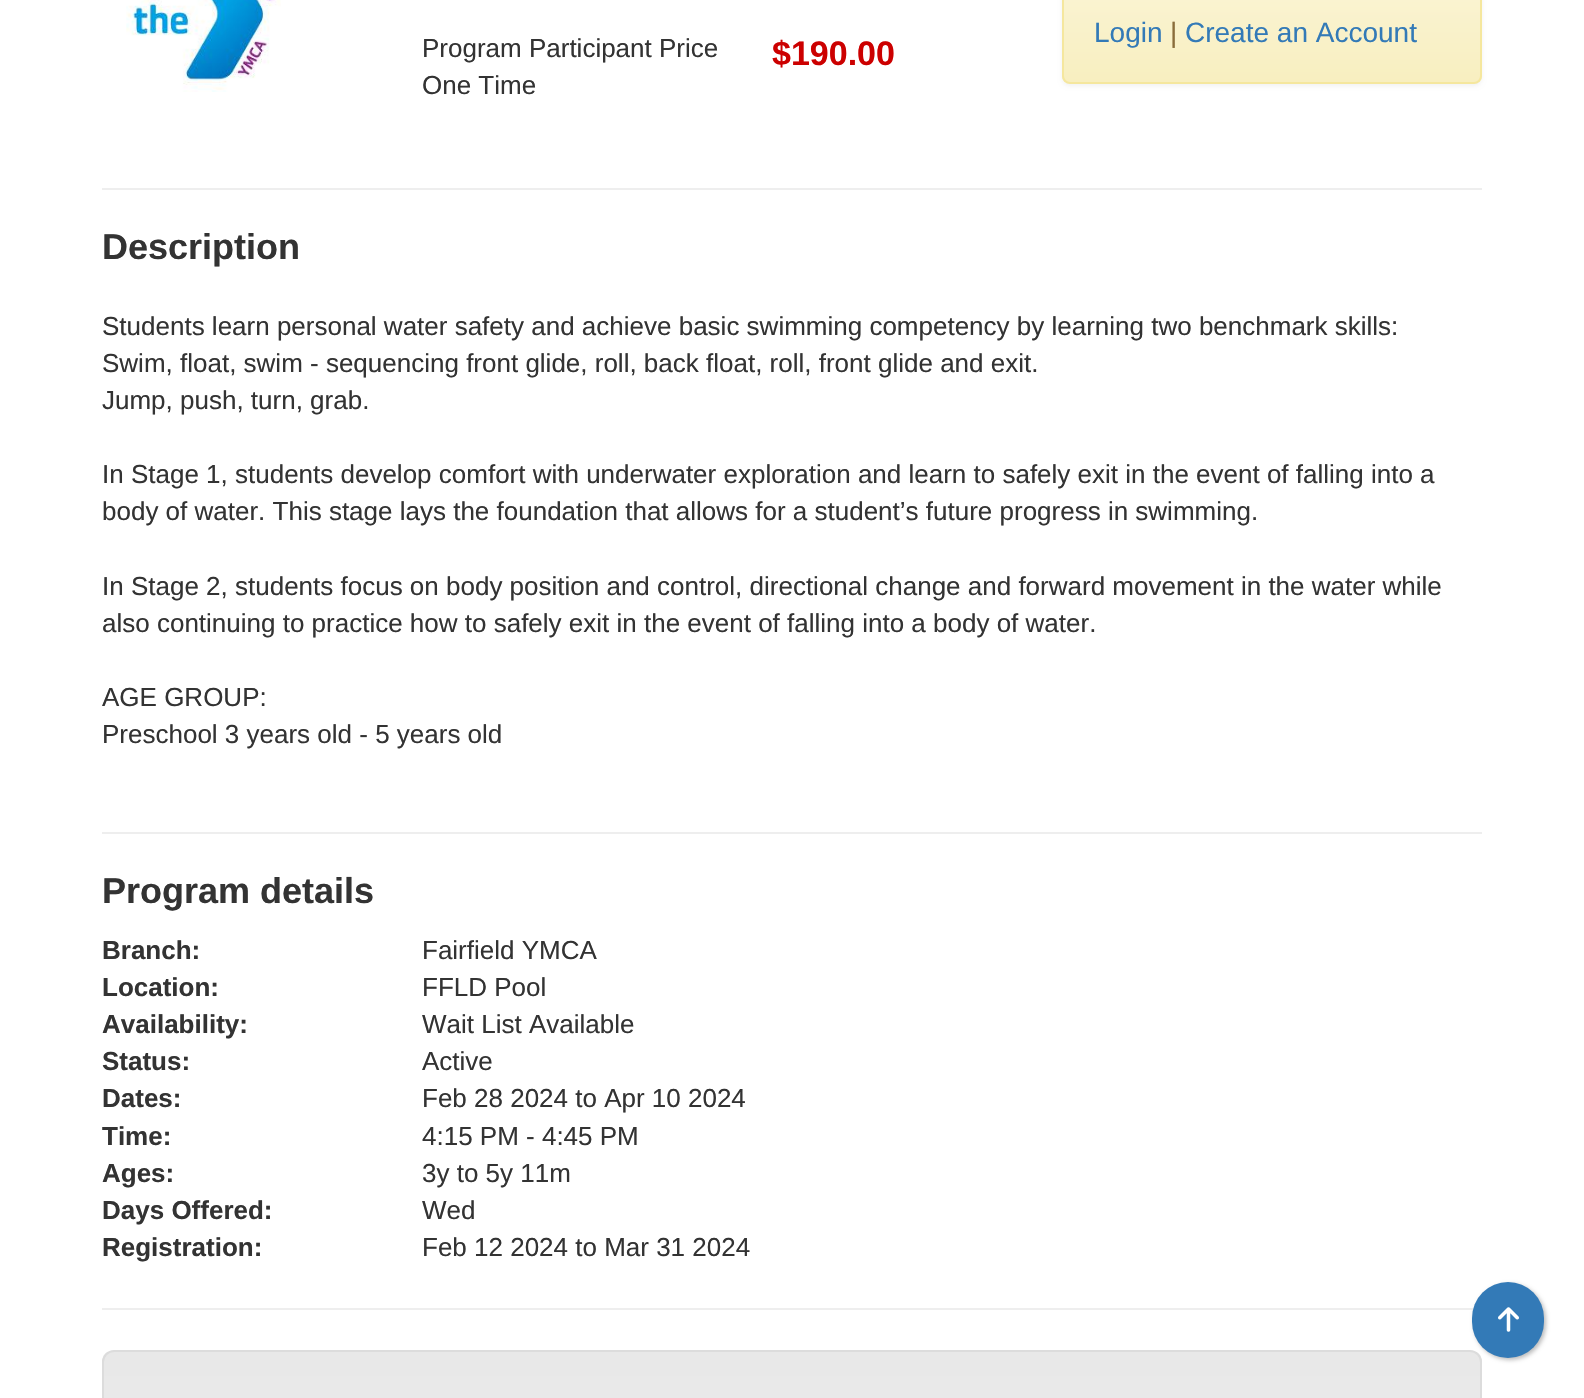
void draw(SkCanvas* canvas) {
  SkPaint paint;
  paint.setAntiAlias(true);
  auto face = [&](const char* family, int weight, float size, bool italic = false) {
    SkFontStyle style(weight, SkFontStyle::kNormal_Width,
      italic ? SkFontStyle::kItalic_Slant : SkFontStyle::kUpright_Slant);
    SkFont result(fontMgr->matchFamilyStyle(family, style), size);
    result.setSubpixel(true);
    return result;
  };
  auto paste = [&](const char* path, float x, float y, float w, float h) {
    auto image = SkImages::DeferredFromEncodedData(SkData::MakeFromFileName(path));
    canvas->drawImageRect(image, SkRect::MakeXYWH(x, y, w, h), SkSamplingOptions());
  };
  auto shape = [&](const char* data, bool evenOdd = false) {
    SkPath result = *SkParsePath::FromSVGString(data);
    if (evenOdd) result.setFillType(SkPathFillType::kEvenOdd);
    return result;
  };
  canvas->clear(0xffffffff);
  paint.setColor(0x0d000000);
  paint.setMaskFilter(SkMaskFilter::MakeBlur(kNormal_SkBlurStyle, 2));
  canvas->drawRoundRect(SkRect::MakeXYWH(1062, -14, 420, 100), 8, 8, paint);
  paint.setMaskFilter(nullptr);
  canvas->save();
  canvas->clipPath(shape("M1070-100H1474C1478.5-100 1482-96.5 1482-92V76C1482 80.5 1478.5 84 1474 84H1070C1065.5 84 1062 80.5 1062 76V-92C1062-96.5 1065.5-100 1070-100Z"), true);
  {
    const SkColor colors[] = {0xfffcf8e3, 0xfff8efc0};
    const float stops[] = {0, 1};
    const SkPoint ends[] = {{1272, -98}, {1272, 82}};
    paint.setShader(SkGradientShader::MakeLinear(ends, colors, stops, 2, SkTileMode::kClamp));
    paint.setAlpha(255);
  }
  canvas->drawRect(SkRect::MakeXYWH(1062, 0, 420, 82), paint);
  canvas->restore();
  paint.setStroke(true);
  paint.setStrokeWidth(2);
  paint.setShader(nullptr);
  paint.setColor(0xfff5e79e);
  canvas->drawRoundRect(SkRect::MakeXYWH(1063, -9, 418, 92), 7, 7, paint);
  paste("img/1.png", 126, 0, 155, 92);
  paint.setStroke(false);
  {
    const struct { float x, y, w, h; SkColor color; } items[] = {
      {102, 188, 1380, 2, 0xffeeeeee},
      {102, 832, 1380, 2, 0xffeeeeee},
      {102, 1308, 1380, 2, 0xffeeeeee},
    };
    for (auto [x, y, w, h, color] : items) {
      paint.setColor(color);
      canvas->drawRect(SkRect::MakeXYWH(x, y, w, h), paint);
    }
  }
  canvas->save();
  canvas->clipPath(shape("M114 1350H1470C1476.5 1350 1482 1355.5 1482 1362V1964C1482 1970.5 1476.5 1976 1470 1976H114C107.5 1976 102 1970.5 102 1964V1362C102 1355.5 107.5 1350 114 1350Z"), true);
  {
    const SkColor colors[] = {0xffe8e8e8, 0xfff5f5f5};
    const float stops[] = {0, 1};
    const SkPoint ends[] = {{792, 1352}, {792, 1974}};
    paint.setShader(SkGradientShader::MakeLinear(ends, colors, stops, 2, SkTileMode::kClamp));
    paint.setAlpha(255);
  }
  canvas->drawRect(SkRect::MakeXYWH(102, 1352, 1380, 46), paint);
  canvas->restore();
  paint.setStroke(true);
  paint.setShader(nullptr);
  paint.setColor(0xffdcdcdc);
  canvas->drawRoundRect(SkRect::MakeXYWH(103, 1351, 1378, 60), 11, 11, paint);
  paint.setStroke(false);
  paint.setColor(0xffbbbbbb);
  paint.setMaskFilter(SkMaskFilter::MakeBlur(kNormal_SkBlurStyle, 2));
  canvas->drawRoundRect(SkRect::MakeXYWH(1474, 1284, 72, 76), 36, 36, paint);
  paint.setMaskFilter(nullptr);
  paint.setColor(0xff337ab7);
  canvas->drawRoundRect(SkRect::MakeXYWH(1472, 1282, 72, 76), 36, 36, paint);
  paste("img/2.png", 1498, 1307, 21, 25);
  auto f0 = face("Liberation Sans", 400, 28);
  canvas->drawString("Login", 1094, 42, f0, paint);
  paint.setColor(0xff8a6d3b);
  canvas->drawString("|", 1170, 42, f0, paint);
  paint.setColor(0xff337ab7);
  canvas->drawString("Create an Account", 1185, 42, f0, paint);
  auto f1 = face("Liberation Sans", 400, 26);
  paint.setColor(0xff333333);
  canvas->drawString("Program Participant Price", 422, 57, f1, paint);
  canvas->drawString("One Time", 422, 94, f1, paint);
  auto f2 = face("Liberation Sans", 700, 34);
  paint.setColor(0xffcc0000);
  canvas->drawString("$190.00", 772, 65, f2, paint);
  auto f3 = face("Liberation Sans", 700, 36);
  paint.setColor(0xff333333);
  canvas->drawString("Description", 102, 259, f3, paint);
  {
    const struct { const char* s; float x, y; } items[] = {
      {"Students learn personal water safety and achieve basic swimming competency by learning two benchmark skills:", 102, 335},
      {"Swim, float, swim - sequencing front glide, roll, back float, roll, front glide and exit.", 102, 372},
      {"Jump, push, turn, grab.", 102, 409},
      {"In Stage 1, students develop comfort with underwater exploration and learn to safely exit in the event of falling into a", 102, 483},
      {"body of water. This stage lays the foundation that allows for a student’s future progress in swimming.", 102, 520},
      {"In Stage 2, students focus on body position and control, directional change and forward movement in the water while", 102, 595},
      {"also continuing to practice how to safely exit in the event of falling into a body of water.", 102, 632},
      {"AGE GROUP:", 102, 706},
      {"Preschool 3 years old - 5 years old", 102, 743},
    };
    for (auto [s, x, y] : items) {
      canvas->drawString(s, x, y, f1, paint);
    }
  }
  canvas->drawString("Program details", 102, 903, f3, paint);
  auto f4 = face("Liberation Sans", 700, 26);
  canvas->drawString("Branch:", 102, 959, f4, paint);
  canvas->drawString("Fairfield YMCA", 422, 959, f1, paint);
  canvas->drawString("Location:", 102, 996, f4, paint);
  canvas->drawString("FFLD Pool", 422, 996, f1, paint);
  canvas->drawString("Availability:", 102, 1033, f4, paint);
  canvas->drawString("Wait List Available", 422, 1033, f1, paint);
  canvas->drawString("Status:", 102, 1070, f4, paint);
  canvas->drawString("Active", 422, 1070, f1, paint);
  canvas->drawString("Dates:", 102, 1107, f4, paint);
  canvas->drawString("Feb 28 2024 to Apr 10 2024", 422, 1107, f1, paint);
  canvas->drawString("Time:", 102, 1145, f4, paint);
  canvas->drawString("4:15 PM - 4:45 PM", 422, 1145, f1, paint);
  canvas->drawString("Ages:", 102, 1182, f4, paint);
  canvas->drawString("3y to 5y 11m", 422, 1182, f1, paint);
  canvas->drawString("Days Offered:", 102, 1219, f4, paint);
  canvas->drawString("Wed", 422, 1219, f1, paint);
  canvas->drawString("Registration:", 102, 1256, f4, paint);
  canvas->drawString("Feb 12 2024 to Mar 31 2024", 422, 1256, f1, paint);
}
